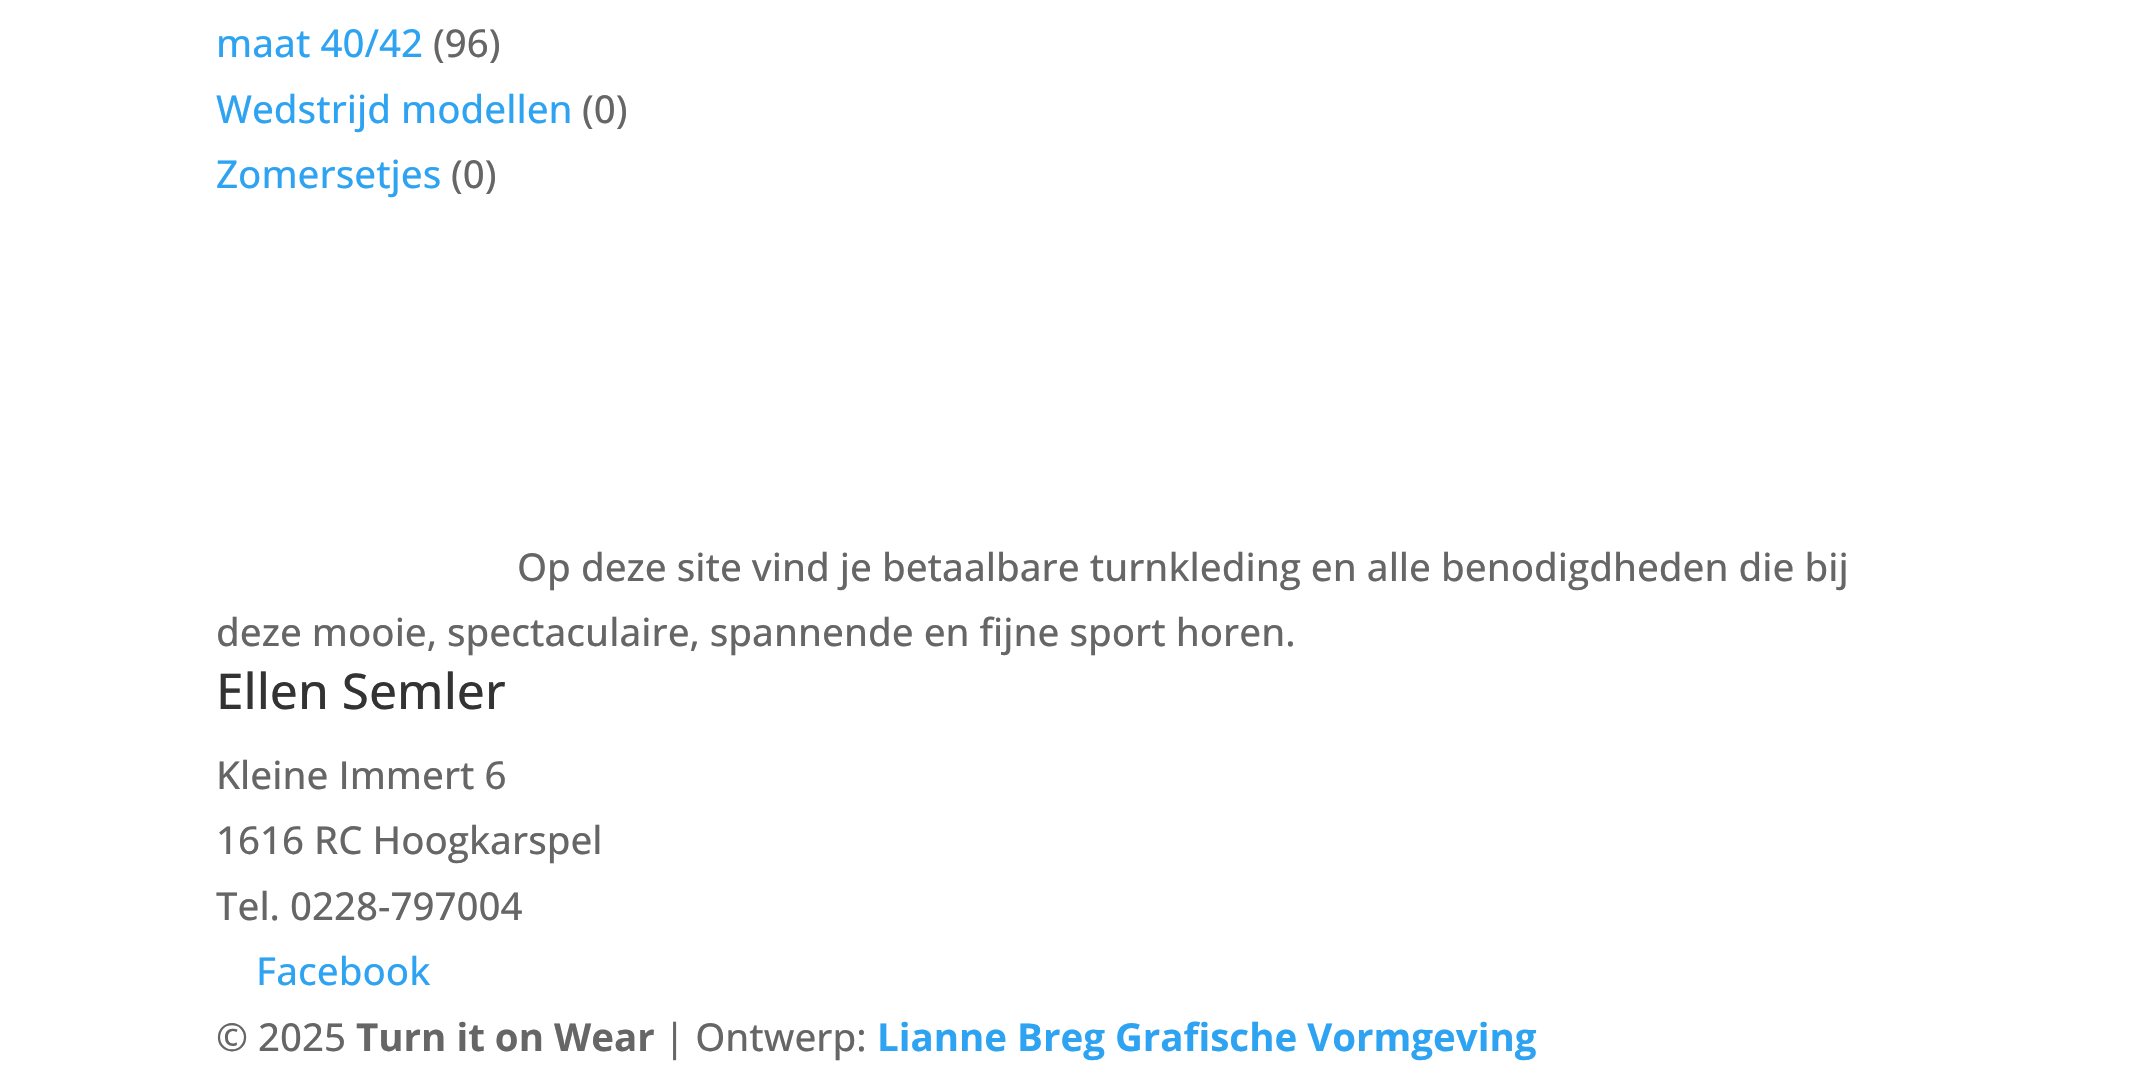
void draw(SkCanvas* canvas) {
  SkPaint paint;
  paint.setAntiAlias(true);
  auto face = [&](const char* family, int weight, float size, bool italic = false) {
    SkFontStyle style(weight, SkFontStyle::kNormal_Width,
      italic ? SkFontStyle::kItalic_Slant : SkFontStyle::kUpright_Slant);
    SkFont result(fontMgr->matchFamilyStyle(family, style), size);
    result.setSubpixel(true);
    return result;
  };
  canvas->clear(0xffffffff);
  auto f0 = face("Open Sans", 500, 38.5f);
  paint.setColor(0xff2ea3f2);
  canvas->drawString("maat 40/42", 216, 57, f0, paint);
  paint.setColor(0xff666666);
  canvas->drawString("(96)", 433, 57, f0, paint);
  paint.setColor(0xff2ea3f2);
  canvas->drawString("Wedstrijd modellen", 216, 123, f0, paint);
  paint.setColor(0xff666666);
  canvas->drawString("(0)", 582, 123, f0, paint);
  paint.setColor(0xff2ea3f2);
  canvas->drawString("Zomersetjes", 216, 188, f0, paint);
  paint.setColor(0xff666666);
  {
    const struct { const char* s; float x, y; } items[] = {
      {"(0)", 451, 188},
      {"Op deze site vind je betaalbare turnkleding en alle benodigdheden die bij", 517, 581},
      {"deze mooie, spectaculaire, spannende en fijne sport horen.", 216, 646},
    };
    for (auto [s, x, y] : items) {
      canvas->drawString(s, x, y, f0, paint);
    }
  }
  auto f1 = face("Open Sans", 500, 49.5f);
  paint.setColor(0xff333333);
  canvas->drawString("Ellen Semler", 216, 709, f1, paint);
  paint.setColor(0xff666666);
  {
    const struct { const char* s; float x, y; } items[] = {
      {"Kleine Immert 6", 216, 789},
      {"1616 RC Hoogkarspel", 216, 854},
      {"Tel. 0228-797004", 216, 920},
    };
    for (auto [s, x, y] : items) {
      canvas->drawString(s, x, y, f0, paint);
    }
  }
  paint.setColor(0xff2ea3f2);
  canvas->drawString("Facebook", 256, 985, f0, paint);
  paint.setColor(0xff666666);
  canvas->drawString("© 2025", 216, 1051, f0, paint);
  auto f2 = face("Open Sans", 700, 38.5f);
  canvas->drawString("Turn it on Wear", 356, 1051, f2, paint);
  canvas->drawString("| Ontwerp:", 664, 1051, f0, paint);
  paint.setColor(0xff2ea3f2);
  canvas->drawString("Lianne Breg Grafische Vormgeving", 877, 1051, f2, paint);
}
